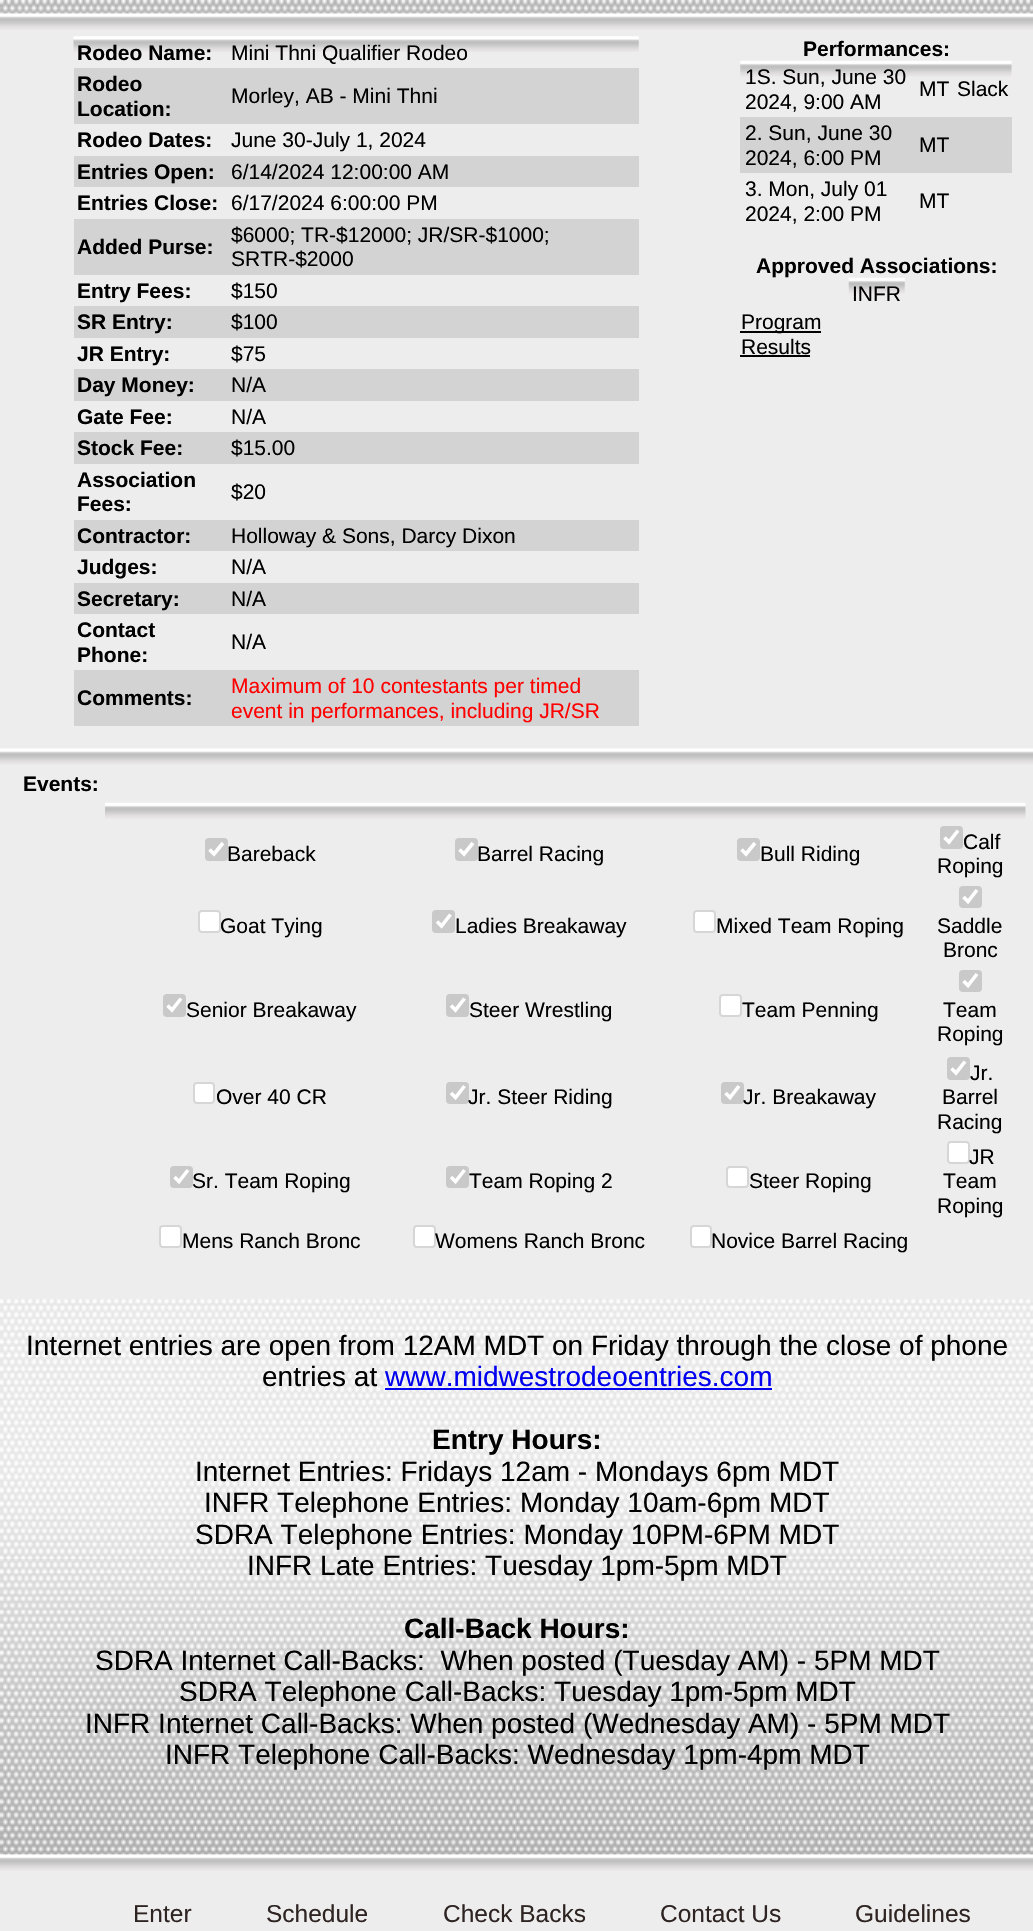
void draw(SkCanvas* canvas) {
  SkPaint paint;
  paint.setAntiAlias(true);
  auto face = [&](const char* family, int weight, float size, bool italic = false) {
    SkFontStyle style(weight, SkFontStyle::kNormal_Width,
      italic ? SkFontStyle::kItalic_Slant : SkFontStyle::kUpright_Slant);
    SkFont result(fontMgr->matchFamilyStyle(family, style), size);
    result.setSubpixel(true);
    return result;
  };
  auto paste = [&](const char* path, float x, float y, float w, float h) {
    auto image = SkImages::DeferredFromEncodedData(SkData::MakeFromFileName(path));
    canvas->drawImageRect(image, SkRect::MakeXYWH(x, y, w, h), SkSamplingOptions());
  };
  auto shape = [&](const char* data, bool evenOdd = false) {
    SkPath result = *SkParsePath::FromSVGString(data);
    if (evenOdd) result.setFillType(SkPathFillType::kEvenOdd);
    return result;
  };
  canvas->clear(0xffffffff);
  paste("img/1.png", 0, 0, 1033, 1855);
  paint.setColor(0xffeeeded);
  canvas->drawRect(SkRect::MakeXYWH(0, 30, 1033, 719), paint);
  paste("img/2.png", 0, 13, 1033, 17);
  paste("img/3.png", 73, 36, 566, 16);
  {
    const struct { float x, y, w, h; SkColor color; } items[] = {
      {74, 68, 565, 56, 0xffd3d3d3},
      {74, 156, 565, 31, 0xffd3d3d3},
      {74, 219, 565, 56, 0xffd3d3d3},
      {74, 306, 565, 32, 0xffd3d3d3},
      {74, 369, 565, 32, 0xffd3d3d3},
      {74, 432, 565, 32, 0xffd3d3d3},
      {74, 520, 565, 31, 0xffd3d3d3},
      {74, 583, 565, 31, 0xffd3d3d3},
      {74, 670, 565, 56, 0xffd3d3d3},
    };
    for (auto [x, y, w, h, color] : items) {
      paint.setColor(color);
      canvas->drawRect(SkRect::MakeXYWH(x, y, w, h), paint);
    }
  }
  paste("img/4.png", 740, 60, 272, 17);
  canvas->drawRect(SkRect::MakeXYWH(740, 117, 272, 56), paint);
  paste("img/5.png", 848, 277, 57, 17);
  {
    const struct { float x, y, w, h; SkColor color; } items[] = {
      {740, 331, 81, 2, 0xff000000},
      {740, 355, 70, 2, 0xff000000},
      {0, 765, 1033, 534, 0xffeeeded},
    };
    for (auto [x, y, w, h, color] : items) {
      paint.setColor(color);
      canvas->drawRect(SkRect::MakeXYWH(x, y, w, h), paint);
    }
  }
  paste("img/6.png", 0, 748, 1033, 17);
  paste("img/7.png", 105, 802, 921, 17);
  paint.setColor(0xffcac9c9);
  canvas->drawRoundRect(SkRect::MakeXYWH(205, 838, 23, 23), 4, 4, paint);
  paint.setStroke(true);
  paint.setStrokeWidth(3.6f);
  paint.setColor(0xffffffff);
  canvas->drawPath(shape("M209.5 849.5L214 854L223 843"), paint);
  paint.setStroke(false);
  paint.setColor(0xffcac9c9);
  canvas->drawRoundRect(SkRect::MakeXYWH(455, 838, 23, 23), 4, 4, paint);
  paint.setStroke(true);
  paint.setColor(0xffffffff);
  canvas->drawPath(shape("M459.5 849.5L464 854L473 843"), paint);
  paint.setStroke(false);
  paint.setColor(0xffcac9c9);
  canvas->drawRoundRect(SkRect::MakeXYWH(737, 838, 23, 23), 4, 4, paint);
  paint.setStroke(true);
  paint.setColor(0xffffffff);
  canvas->drawPath(shape("M741.5 849.5L746 854L755 843"), paint);
  paint.setStroke(false);
  paint.setColor(0xffcac9c9);
  canvas->drawRoundRect(SkRect::MakeXYWH(940, 826, 23, 23), 4, 4, paint);
  paint.setStroke(true);
  paint.setColor(0xffffffff);
  canvas->drawPath(shape("M944.5 837.5L949 842L958 830.5"), paint);
  paint.setStroke(false);
  canvas->drawRoundRect(SkRect::MakeXYWH(198, 910, 23, 23), 4, 4, paint);
  paint.setStroke(true);
  paint.setStrokeWidth(2);
  paint.setColor(0x4d767676);
  canvas->drawRoundRect(SkRect::MakeXYWH(199, 911, 21, 21), 3, 3, paint);
  paint.setStroke(false);
  paint.setColor(0xffcac9c9);
  canvas->drawRoundRect(SkRect::MakeXYWH(432, 910, 23, 23), 4, 4, paint);
  paint.setStroke(true);
  paint.setStrokeWidth(3.6f);
  paint.setColor(0xffffffff);
  canvas->drawPath(shape("M437 921.5L441.5 926L450.5 914.5"), paint);
  paint.setStroke(false);
  canvas->drawRoundRect(SkRect::MakeXYWH(693, 910, 23, 23), 4, 4, paint);
  paint.setStroke(true);
  paint.setStrokeWidth(2);
  paint.setColor(0x4d767676);
  canvas->drawRoundRect(SkRect::MakeXYWH(694, 911, 21, 21), 3, 3, paint);
  paint.setStroke(false);
  paint.setColor(0xffcac9c9);
  canvas->drawRoundRect(SkRect::MakeXYWH(959, 886, 23, 22), 4, 4, paint);
  paint.setStroke(true);
  paint.setStrokeWidth(3.6f);
  paint.setColor(0xffffffff);
  canvas->drawPath(shape("M963.5 897L968 901.5L977 890"), paint);
  paint.setStroke(false);
  paint.setColor(0xffcac9c9);
  canvas->drawRoundRect(SkRect::MakeXYWH(163, 994, 23, 23), 4, 4, paint);
  paint.setStroke(true);
  paint.setColor(0xffffffff);
  canvas->drawPath(shape("M167.5 1005.5L172 1010L181 998.5"), paint);
  paint.setStroke(false);
  paint.setColor(0xffcac9c9);
  canvas->drawRoundRect(SkRect::MakeXYWH(446, 994, 23, 23), 4, 4, paint);
  paint.setStroke(true);
  paint.setColor(0xffffffff);
  canvas->drawPath(shape("M451 1005.5L455.5 1010L464.5 998.5"), paint);
  paint.setStroke(false);
  canvas->drawRoundRect(SkRect::MakeXYWH(719, 994, 23, 23), 4, 4, paint);
  paint.setStroke(true);
  paint.setStrokeWidth(2);
  paint.setColor(0x4d767676);
  canvas->drawRoundRect(SkRect::MakeXYWH(720, 995, 21, 21), 3, 3, paint);
  paint.setStroke(false);
  paint.setColor(0xffcac9c9);
  canvas->drawRoundRect(SkRect::MakeXYWH(959, 970, 23, 22), 4, 4, paint);
  paint.setStroke(true);
  paint.setStrokeWidth(3.6f);
  paint.setColor(0xffffffff);
  canvas->drawPath(shape("M963.5 981L968 985.5L977 974"), paint);
  paint.setStroke(false);
  canvas->drawRoundRect(SkRect::MakeXYWH(193, 1082, 22, 22), 4, 4, paint);
  paint.setStroke(true);
  paint.setStrokeWidth(2);
  paint.setColor(0x4d767676);
  canvas->drawRoundRect(SkRect::MakeXYWH(194, 1083, 20, 20), 3, 3, paint);
  paint.setStroke(false);
  paint.setColor(0xffcac9c9);
  canvas->drawRoundRect(SkRect::MakeXYWH(446, 1082, 23, 22), 4, 4, paint);
  paint.setStroke(true);
  paint.setStrokeWidth(3.6f);
  paint.setColor(0xffffffff);
  canvas->drawPath(shape("M451 1093L455.5 1097.5L464.5 1086"), paint);
  paint.setStroke(false);
  paint.setColor(0xffcac9c9);
  canvas->drawRoundRect(SkRect::MakeXYWH(721, 1082, 23, 22), 4, 4, paint);
  paint.setStroke(true);
  paint.setColor(0xffffffff);
  canvas->drawPath(shape("M725.5 1093L730 1097.5L739 1086"), paint);
  paint.setStroke(false);
  paint.setColor(0xffcac9c9);
  canvas->drawRoundRect(SkRect::MakeXYWH(947, 1057, 23, 23), 4, 4, paint);
  paint.setStroke(true);
  paint.setColor(0xffffffff);
  canvas->drawPath(shape("M951.5 1068.5L956 1073L965 1061.5"), paint);
  paint.setStroke(false);
  paint.setColor(0xffcac9c9);
  canvas->drawRoundRect(SkRect::MakeXYWH(170, 1166, 23, 22), 4, 4, paint);
  paint.setStroke(true);
  paint.setColor(0xffffffff);
  canvas->drawPath(shape("M174.5 1177L179 1181.5L188 1170"), paint);
  paint.setStroke(false);
  paint.setColor(0xffcac9c9);
  canvas->drawRoundRect(SkRect::MakeXYWH(446, 1166, 23, 22), 4, 4, paint);
  paint.setStroke(true);
  paint.setColor(0xffffffff);
  canvas->drawPath(shape("M451 1177L455.5 1181.5L464.5 1170"), paint);
  paint.setStroke(false);
  canvas->drawRoundRect(SkRect::MakeXYWH(726, 1166, 23, 22), 4, 4, paint);
  paint.setStroke(true);
  paint.setStrokeWidth(2);
  paint.setColor(0x4d767676);
  canvas->drawRoundRect(SkRect::MakeXYWH(727, 1167, 21, 20), 3, 3, paint);
  paint.setStroke(false);
  paint.setColor(0xffffffff);
  canvas->drawRoundRect(SkRect::MakeXYWH(947, 1141, 23, 23), 4, 4, paint);
  paint.setStroke(true);
  paint.setColor(0x4d767676);
  canvas->drawRoundRect(SkRect::MakeXYWH(948, 1142, 21, 21), 3, 3, paint);
  paint.setStroke(false);
  paint.setColor(0xffffffff);
  canvas->drawRoundRect(SkRect::MakeXYWH(159, 1225, 23, 23), 4, 4, paint);
  paint.setStroke(true);
  paint.setColor(0x4d767676);
  canvas->drawRoundRect(SkRect::MakeXYWH(160, 1226, 21, 21), 3, 3, paint);
  paint.setStroke(false);
  paint.setColor(0xffffffff);
  canvas->drawRoundRect(SkRect::MakeXYWH(413, 1225, 23, 23), 4, 4, paint);
  paint.setStroke(true);
  paint.setColor(0x4d767676);
  canvas->drawRoundRect(SkRect::MakeXYWH(414, 1226, 21, 21), 3, 3, paint);
  paint.setStroke(false);
  paint.setColor(0xffffffff);
  canvas->drawRoundRect(SkRect::MakeXYWH(690, 1225, 22, 23), 4, 4, paint);
  paint.setStroke(true);
  paint.setColor(0x4d767676);
  canvas->drawRoundRect(SkRect::MakeXYWH(691, 1226, 20, 21), 3, 3, paint);
  paint.setStroke(false);
  paint.setColor(0xff0000ee);
  canvas->drawRect(SkRect::MakeXYWH(385, 1388, 387, 2), paint);
  paint.setColor(0xffeeeded);
  canvas->drawRect(SkRect::MakeXYWH(0, 1871, 1033, 60), paint);
  paste("img/8.png", 0, 1854, 1033, 17);
  auto f0 = face("Liberation Sans", 700, 21);
  paint.setColor(0xff000000);
  canvas->drawString("Rodeo Name:", 77, 60, f0, paint);
  auto f1 = face("Liberation Sans", 400, 21);
  canvas->drawString("Mini Thni Qualifier Rodeo", 231, 60, f1, paint);
  canvas->drawString("Rodeo", 77, 91, f0, paint);
  canvas->drawString("Location:", 77, 116, f0, paint);
  canvas->drawString("Morley, AB - Mini Thni", 231, 103, f1, paint);
  canvas->drawString("Rodeo Dates:", 77, 147, f0, paint);
  canvas->drawString("June 30-July 1, 2024", 231, 147, f1, paint);
  canvas->drawString("Entries Open:", 77, 179, f0, paint);
  canvas->drawString("6/14/2024 12:00:00 AM", 231, 179, f1, paint);
  canvas->drawString("Entries Close:", 77, 210, f0, paint);
  canvas->drawString("6/17/2024 6:00:00 PM", 231, 210, f1, paint);
  canvas->drawString("Added Purse:", 77, 254, f0, paint);
  canvas->drawString("$6000; TR-$12000; JR/SR-$1000;", 231, 242, f1, paint);
  canvas->drawString("SRTR-$2000", 231, 266, f1, paint);
  canvas->drawString("Entry Fees:", 77, 298, f0, paint);
  canvas->drawString("$150", 231, 298, f1, paint);
  canvas->drawString("SR Entry:", 77, 329, f0, paint);
  canvas->drawString("$100", 231, 329, f1, paint);
  canvas->drawString("JR Entry:", 77, 361, f0, paint);
  canvas->drawString("$75", 231, 361, f1, paint);
  canvas->drawString("Day Money:", 77, 392, f0, paint);
  canvas->drawString("N/A", 231, 392, f1, paint);
  canvas->drawString("Gate Fee:", 77, 424, f0, paint);
  canvas->drawString("N/A", 231, 424, f1, paint);
  canvas->drawString("Stock Fee:", 77, 455, f0, paint);
  canvas->drawString("$15.00", 231, 455, f1, paint);
  canvas->drawString("Association", 77, 487, f0, paint);
  canvas->drawString("Fees:", 77, 511, f0, paint);
  canvas->drawString("$20", 231, 499, f1, paint);
  canvas->drawString("Contractor:", 77, 543, f0, paint);
  canvas->drawString("Holloway & Sons, Darcy Dixon", 231, 543, f1, paint);
  canvas->drawString("Judges:", 77, 574, f0, paint);
  canvas->drawString("N/A", 231, 574, f1, paint);
  canvas->drawString("Secretary:", 77, 606, f0, paint);
  canvas->drawString("N/A", 231, 606, f1, paint);
  canvas->drawString("Contact", 77, 637, f0, paint);
  canvas->drawString("Phone:", 77, 662, f0, paint);
  canvas->drawString("N/A", 231, 649, f1, paint);
  canvas->drawString("Comments:", 77, 705, f0, paint);
  paint.setColor(0xffff0000);
  canvas->drawString("Maximum of 10 contestants per timed", 231, 693, f1, paint);
  canvas->drawString("event in performances, including JR/SR", 231, 718, f1, paint);
  paint.setColor(0xff000000);
  canvas->drawString("Performances:", 803, 56, f0, paint);
  {
    const struct { const char* s; float x, y; } items[] = {
      {"1S. Sun, June 30", 745, 84},
      {"2024, 9:00 AM", 745, 109},
      {"MT", 919, 96},
      {"Slack", 957, 96},
      {"2. Sun, June 30", 745, 140},
      {"2024, 6:00 PM", 745, 165},
      {"MT", 919, 152},
      {"3. Mon, July 01", 745, 196},
      {"2024, 2:00 PM", 745, 221},
      {"MT", 919, 208},
    };
    for (auto [s, x, y] : items) {
      canvas->drawString(s, x, y, f1, paint);
    }
  }
  canvas->drawString("Approved Associations:", 756, 273, f0, paint);
  {
    const struct { const char* s; float x, y; } items[] = {
      {"INFR", 852, 301},
      {"Program", 741, 329},
      {"Results", 741, 354},
    };
    for (auto [s, x, y] : items) {
      canvas->drawString(s, x, y, f1, paint);
    }
  }
  canvas->drawString("Events:", 23, 791, f0, paint);
  {
    const struct { const char* s; float x, y; } items[] = {
      {"Bareback", 227, 861},
      {"Barrel Racing", 477, 861},
      {"Bull Riding", 760, 861},
      {"Calf", 963, 849},
      {"Roping", 937, 873},
      {"Goat Tying", 220, 933},
      {"Ladies Breakaway", 455, 933},
      {"Mixed Team Roping", 716, 933},
      {"Saddle", 937, 933},
      {"Bronc", 943, 957},
      {"Senior Breakaway", 186, 1017},
      {"Steer Wrestling", 469, 1017},
      {"Team Penning", 742, 1017},
      {"Team", 943, 1017},
      {"Roping", 937, 1041},
      {"Over 40 CR", 216, 1104},
      {"Jr. Steer Riding", 468, 1104},
      {"Jr. Breakaway", 743, 1104},
      {"Jr.", 970, 1080},
      {"Barrel", 942, 1104},
      {"Racing", 937, 1129},
      {"Sr. Team Roping", 192, 1188},
      {"Team Roping 2", 469, 1188},
      {"Steer Roping", 749, 1188},
      {"JR", 969, 1164},
      {"Team", 943, 1188},
      {"Roping", 937, 1213},
      {"Mens Ranch Bronc", 182, 1248},
      {"Womens Ranch Bronc", 435, 1248},
      {"Novice Barrel Racing", 711, 1248},
    };
    for (auto [s, x, y] : items) {
      canvas->drawString(s, x, y, f1, paint);
    }
  }
  auto f2 = face("Liberation Sans", 400, 28);
  canvas->drawString("Internet entries are open from 12AM MDT on Friday through the close of phone", 26, 1355, f2, paint);
  canvas->drawString("entries at", 262, 1386, f2, paint);
  paint.setColor(0xff0000ee);
  canvas->drawString("www.midwestrodeoentries.com", 385, 1386, f2, paint);
  auto f3 = face("Liberation Sans", 700, 28);
  paint.setColor(0xff000000);
  canvas->drawString("Entry Hours:", 432, 1449, f3, paint);
  {
    const struct { const char* s; float x, y; } items[] = {
      {"Internet Entries: Fridays 12am - Mondays 6pm MDT", 195, 1481},
      {"INFR Telephone Entries: Monday 10am-6pm MDT", 204, 1512},
      {"SDRA Telephone Entries: Monday 10PM-6PM MDT", 195, 1544},
      {"INFR Late Entries: Tuesday 1pm-5pm MDT", 247, 1575},
    };
    for (auto [s, x, y] : items) {
      canvas->drawString(s, x, y, f2, paint);
    }
  }
  canvas->drawString("Call-Back Hours:", 404, 1638, f3, paint);
  {
    const struct { const char* s; float x, y; } items[] = {
      {"SDRA Internet Call-Backs:  When posted (Tuesday AM) - 5PM MDT", 95, 1670},
      {"SDRA Telephone Call-Backs: Tuesday 1pm-5pm MDT", 179, 1701},
      {"INFR Internet Call-Backs: When posted (Wednesday AM) - 5PM MDT", 85, 1733},
      {"INFR Telephone Call-Backs: Wednesday 1pm-4pm MDT", 165, 1764},
    };
    for (auto [s, x, y] : items) {
      canvas->drawString(s, x, y, f2, paint);
    }
  }
  auto f4 = face("Liberation Sans", 400, 24.5f);
  paint.setColor(0xff2e2523);
  {
    const struct { const char* s; float x, y; } items[] = {
      {"Enter", 133, 1922},
      {"Schedule", 266, 1922},
      {"Check Backs", 443, 1922},
      {"Contact Us", 660, 1922},
      {"Guidelines", 855, 1922},
    };
    for (auto [s, x, y] : items) {
      canvas->drawString(s, x, y, f4, paint);
    }
  }
}
